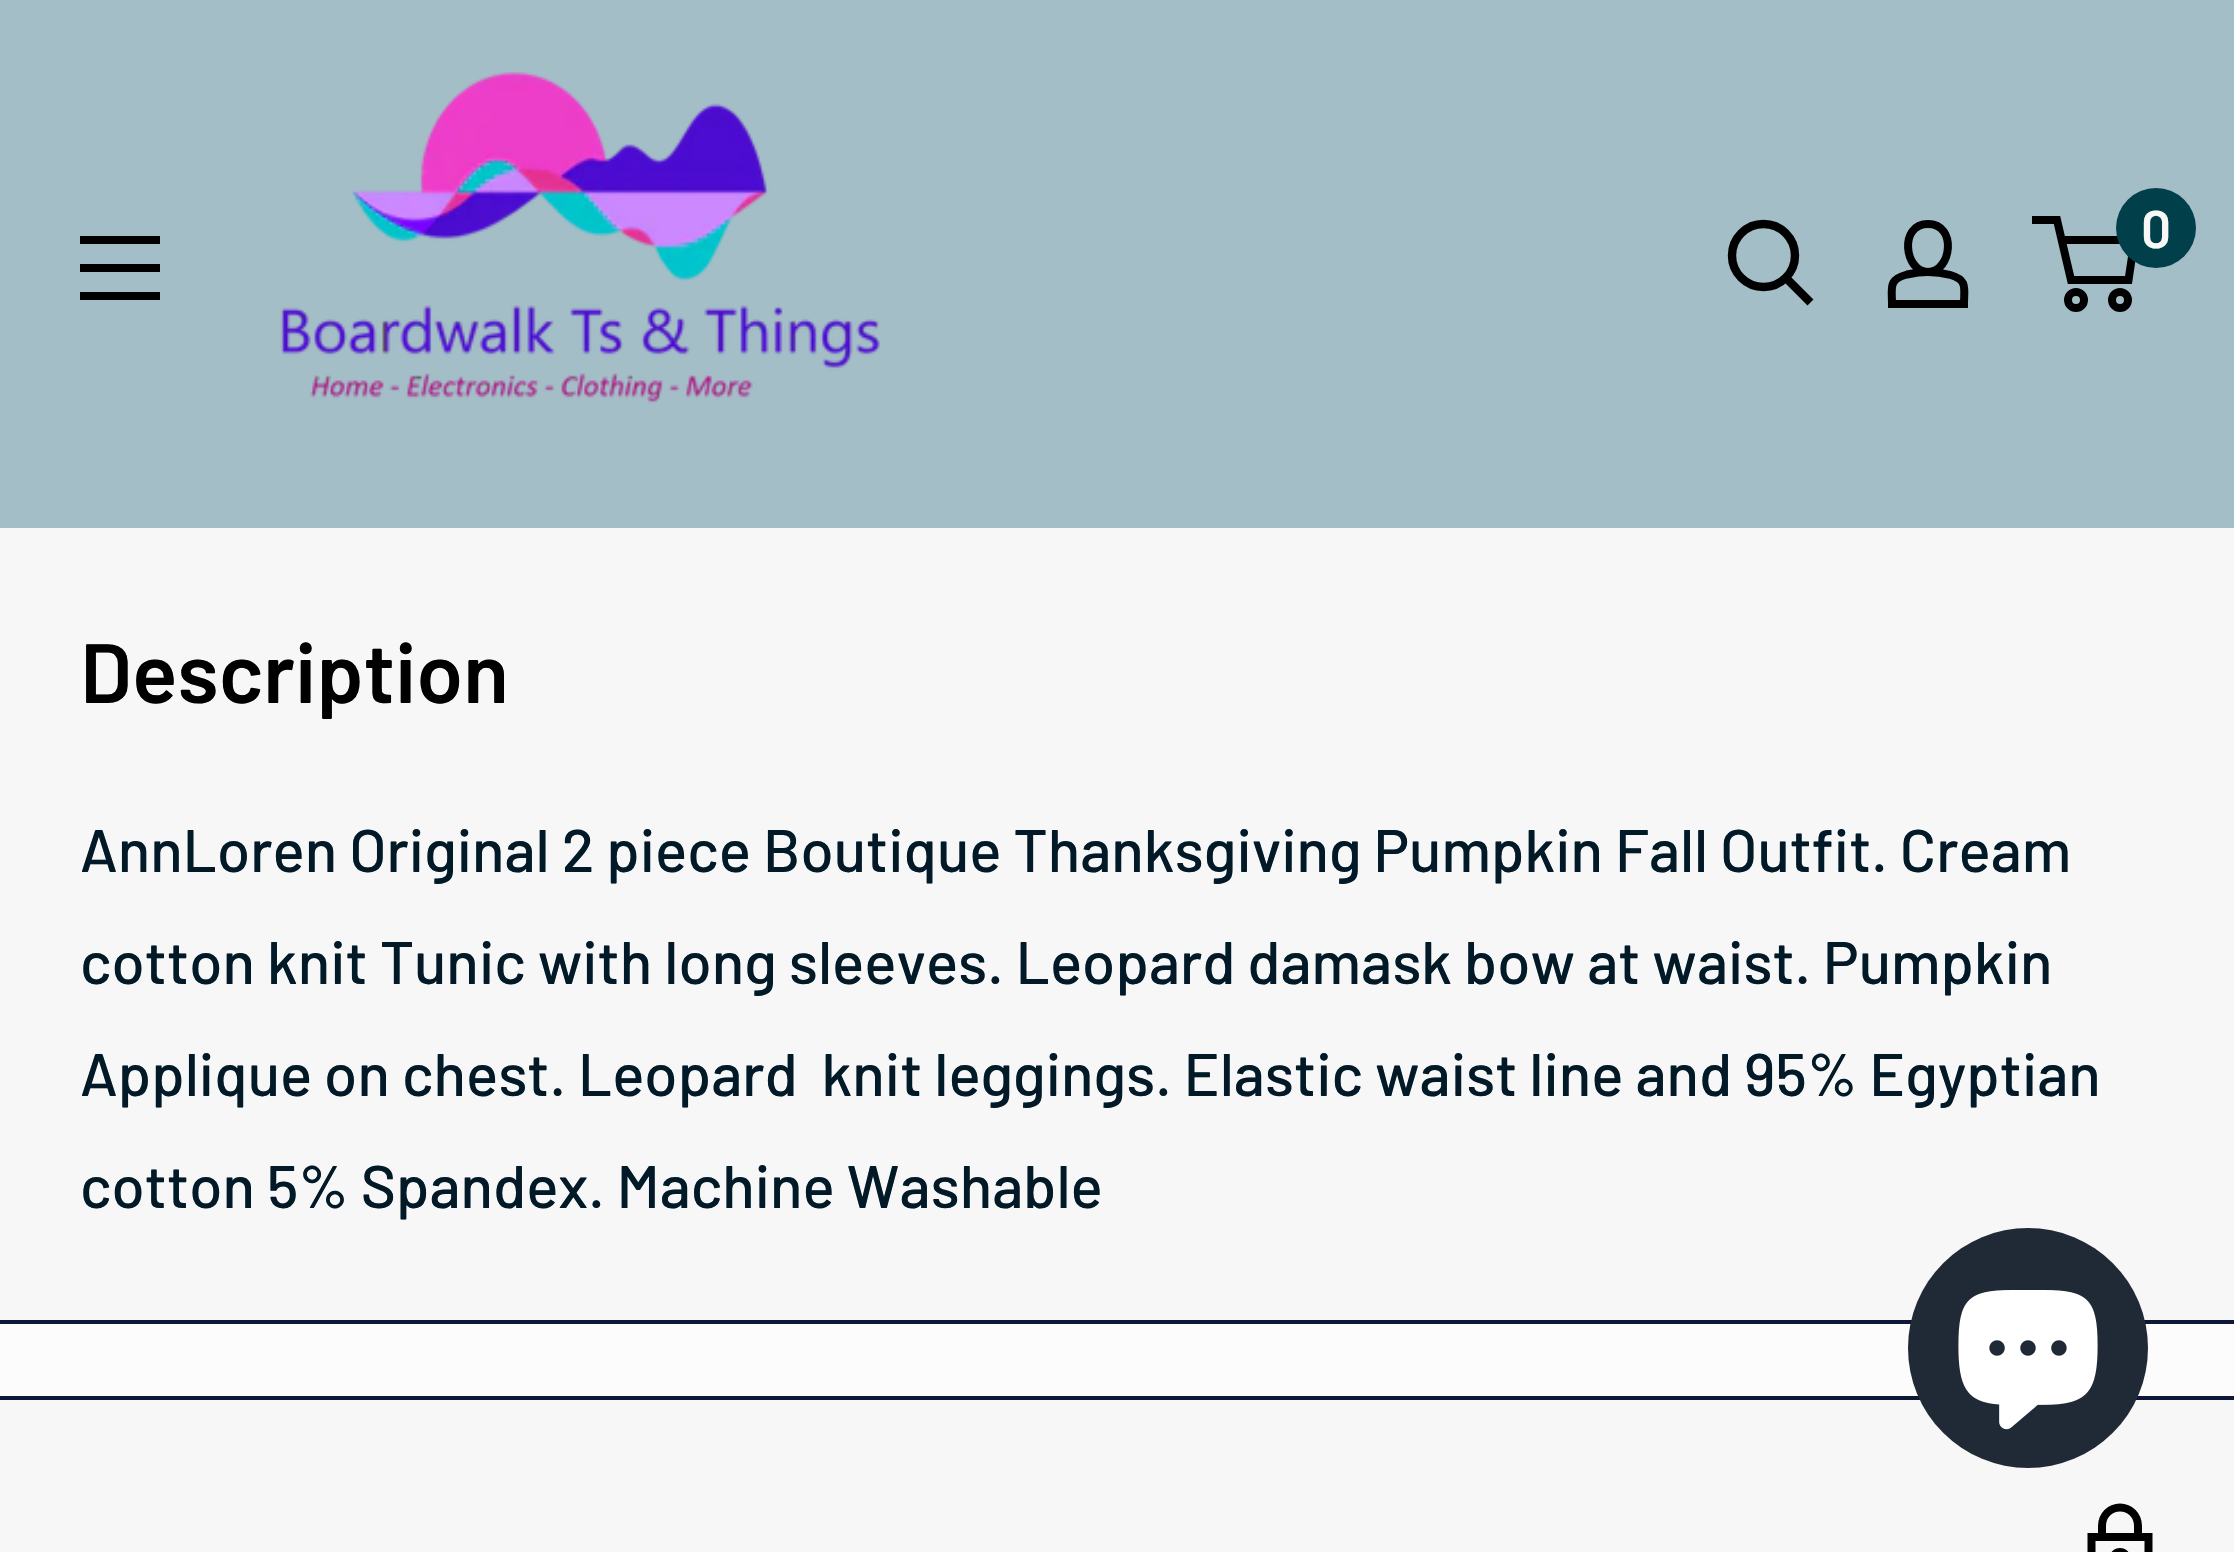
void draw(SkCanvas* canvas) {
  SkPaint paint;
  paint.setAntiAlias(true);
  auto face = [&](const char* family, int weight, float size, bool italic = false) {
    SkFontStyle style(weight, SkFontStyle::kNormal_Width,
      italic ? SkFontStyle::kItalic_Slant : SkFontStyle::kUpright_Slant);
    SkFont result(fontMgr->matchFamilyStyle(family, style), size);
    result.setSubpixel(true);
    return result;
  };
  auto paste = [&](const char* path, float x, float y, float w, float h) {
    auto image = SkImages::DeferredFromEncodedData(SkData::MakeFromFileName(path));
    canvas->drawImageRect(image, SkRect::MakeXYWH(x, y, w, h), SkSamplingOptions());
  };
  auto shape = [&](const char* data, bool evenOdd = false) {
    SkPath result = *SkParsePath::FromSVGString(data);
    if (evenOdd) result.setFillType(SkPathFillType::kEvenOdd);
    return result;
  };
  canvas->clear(0xfffcfcfc);
  paint.setColor(0xffa4bec7);
  canvas->drawRect(SkRect::MakeXYWH(0, 0, 2234, 528), paint);
  paste("img/1.png", 280, 71, 600, 333);
  paint.setStroke(true);
  paint.setStrokeWidth(8.4f);
  paint.setStrokeCap(SkPaint::kSquare_Cap);
  paint.setColor(0xff000000);
  canvas->drawPath(shape("M1807.5 299.5L1786.5 278.5"), paint);
  paint.setStrokeCap(SkPaint::kButt_Cap);
  canvas->drawCircle(1763.5f, 255.5f, 31.5f, paint);
  paint.setStrokeWidth(8);
  canvas->drawPath(shape("M1928 272C1935.5 272 1943 273 1950.5 275C1968 280 1964 288.5 1964 304H1892C1892 287.5 1888 279.5 1907 274.5C1914 273 1921 272 1928 272ZM1928 272C1904.5 272 1898.5 224 1928 224C1957.5 224 1951.5 272 1928 272Z"), paint);
  canvas->drawCircle(2076, 300, 8, paint);
  canvas->drawCircle(2120, 300, 8, paint);
  canvas->drawPath(shape("M2061 240H2134.5L2128.5 280H2071L2057 220H2032"), paint);
  paint.setStroke(false);
  paint.setColor(0xff01404b);
  canvas->drawCircle(2156, 228, 40, paint);
  paint.setColor(0xff000000);
  canvas->drawPath(shape("M80 292H160V300H80ZM80 236H160V244H80ZM80 264H160V272H80Z", true), paint);
  {
    const struct { float x, y, w, h; SkColor color; } items[] = {
      {0, 528, 2234, 792, 0xfff7f7f7},
      {0, 1320, 2234, 4, 0xff101635},
      {0, 1400, 2234, 152, 0xfff7f7f7},
      {0, 1396, 2234, 4, 0xff101635},
    };
    for (auto [x, y, w, h, color] : items) {
      paint.setColor(color);
      canvas->drawRect(SkRect::MakeXYWH(x, y, w, h), paint);
    }
  }
  paint.setStroke(true);
  paint.setStrokeCap(SkPaint::kSquare_Cap);
  paint.setColor(0xff000000);
  canvas->drawPath(shape("M2120 1507.5C2110 1507.5 2102 1515.5 2102 1526V1537H2138V1526C2138 1515.5 2130 1507.5 2120 1507.5Z"), paint);
  canvas->drawPath(shape("M2091.5 1537H2148.5V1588.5H2091.5Z"), paint);
  paint.setStrokeCap(SkPaint::kButt_Cap);
  canvas->drawCircle(2120, 1559, 7, paint);
  paint.setStroke(false);
  paint.setColor(0xff202a36);
  canvas->drawCircle(2028, 1348, 120, paint);
  paste("img/2.png", 1958, 1290, 140, 140);
  auto f0 = face("Barlow", 600, 53);
  paint.setColor(0xfff7f7f7);
  canvas->drawString("0", 2141, 248, f0, paint);
  auto f1 = face("Barlow", 600, 84);
  paint.setColor(0xff000000);
  canvas->drawString("Description", 80, 703, f1, paint);
  auto f2 = face("Barlow", 500, 60);
  paint.setColor(0xff021928);
  {
    const struct { const char* s; float x, y; } items[] = {
      {"AnnLoren Original 2 piece Boutique Thanksgiving Pumpkin Fall Outfit. Cream", 80, 872},
      {"cotton knit Tunic with long sleeves. Leopard damask bow at waist. Pumpkin", 80, 984},
      {"Applique on chest. Leopard  knit leggings. Elastic waist line and 95% Egyptian", 80, 1096},
      {"cotton 5% Spandex. Machine Washable", 80, 1208},
    };
    for (auto [s, x, y] : items) {
      canvas->drawString(s, x, y, f2, paint);
    }
  }
}
